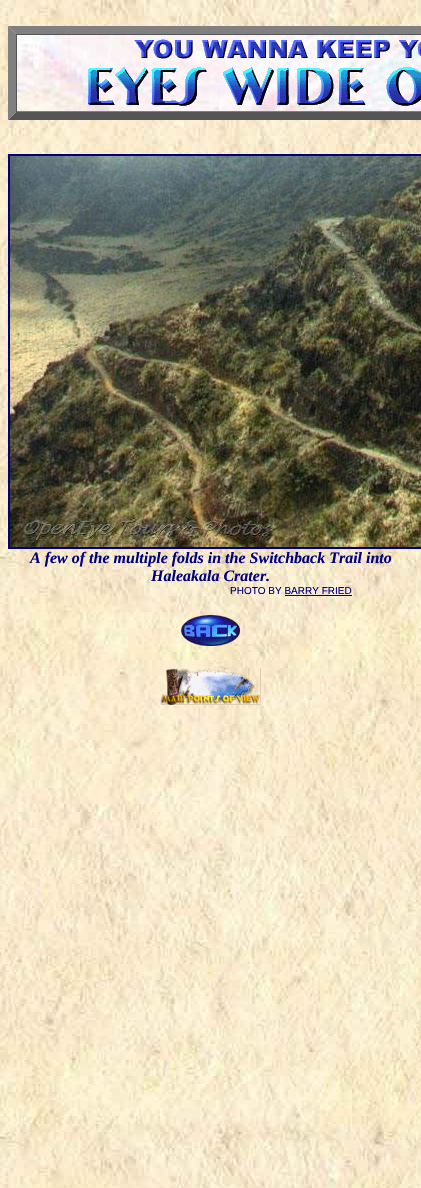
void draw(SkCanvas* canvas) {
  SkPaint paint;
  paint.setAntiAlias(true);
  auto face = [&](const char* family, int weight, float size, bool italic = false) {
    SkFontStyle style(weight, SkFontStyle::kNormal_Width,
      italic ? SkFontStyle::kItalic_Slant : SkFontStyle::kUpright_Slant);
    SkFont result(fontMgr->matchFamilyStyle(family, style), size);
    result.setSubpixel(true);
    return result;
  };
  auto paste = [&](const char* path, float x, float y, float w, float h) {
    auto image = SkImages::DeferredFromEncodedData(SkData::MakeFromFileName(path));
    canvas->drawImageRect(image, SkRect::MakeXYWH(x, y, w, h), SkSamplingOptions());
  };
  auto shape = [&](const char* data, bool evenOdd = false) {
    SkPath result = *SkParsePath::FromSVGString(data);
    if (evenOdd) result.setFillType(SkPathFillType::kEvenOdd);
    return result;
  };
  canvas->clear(0xffffffff);
  paste("img/1.png", 0, 0, 421, 1188);
  paint.setColor(0xff808080);
  canvas->drawPath(shape("M8 26H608L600 34H16Z"), paint);
  paint.setColor(0xff555555);
  canvas->drawPath(shape("M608 120H8L16 112H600Z"), paint);
  paint.setColor(0xff808080);
  canvas->drawPath(shape("M8 120V26L16 34V112Z"), paint);
  paste("img/2.png", 17, 35, 404, 76);
  {
    const struct { float x, y, w, h; SkColor color; } items[] = {
      {16, 34, 405, 1, 0xff555555},
      {16, 111, 405, 1, 0xff808080},
      {16, 34, 1, 78, 0xff555555},
    };
    for (auto [x, y, w, h, color] : items) {
      paint.setColor(color);
      canvas->drawRect(SkRect::MakeXYWH(x, y, w, h), paint);
    }
  }
  paste("img/3.png", 88, 39, 333, 67);
  paint.setStroke(true);
  paint.setStrokeWidth(2);
  paint.setColor(0xff000080);
  canvas->drawRect(SkRect::MakeXYWH(9, 155, 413, 393), paint);
  paste("img/4.png", 10, 156, 411, 391);
  paint.setStroke(false);
  canvas->drawRect(SkRect::MakeXYWH(285, 595, 67, 1), paint);
  paste("img/5.png", 181, 615, 59, 31);
  paste("img/6.png", 161, 668, 100, 37);
  auto f0 = face("Liberation Serif", 700, 16, true);
  canvas->drawString("A few of the multiple folds in the Switchback Trail into", 30, 563, f0, paint);
  canvas->drawString("Haleakala Crater.", 151, 581, f0, paint);
  auto f1 = face("Liberation Sans", 400, 10);
  canvas->drawString("PHOTO BY BARRY FRIED", 230, 594, f1, paint);
}
